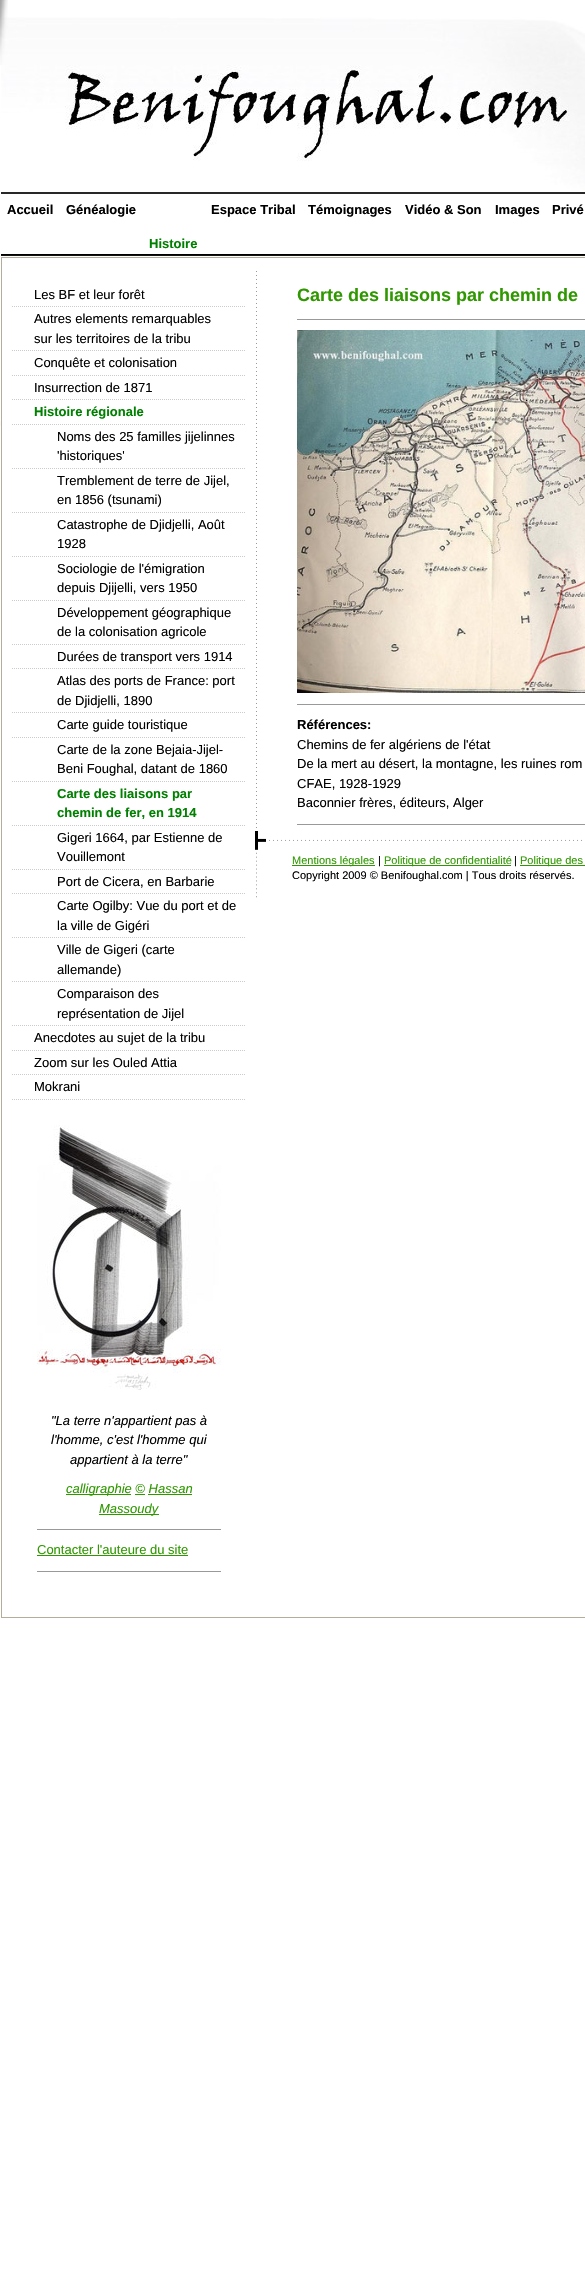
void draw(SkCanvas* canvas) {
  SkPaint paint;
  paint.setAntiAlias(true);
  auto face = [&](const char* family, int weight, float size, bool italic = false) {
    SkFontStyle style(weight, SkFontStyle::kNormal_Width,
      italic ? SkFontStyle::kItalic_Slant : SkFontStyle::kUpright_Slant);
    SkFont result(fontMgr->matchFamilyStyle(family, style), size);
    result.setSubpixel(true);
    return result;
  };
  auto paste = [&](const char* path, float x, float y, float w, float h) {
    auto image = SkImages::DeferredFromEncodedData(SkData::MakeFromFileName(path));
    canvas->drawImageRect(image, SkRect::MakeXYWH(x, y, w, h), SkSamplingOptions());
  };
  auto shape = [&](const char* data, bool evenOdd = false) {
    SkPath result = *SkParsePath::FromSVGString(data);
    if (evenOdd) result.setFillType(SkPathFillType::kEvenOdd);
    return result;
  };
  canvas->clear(0xffffffff);
  paste("img/1.png", 1, 1, 584, 190);
  paint.setColor(0xff282828);
  canvas->drawRect(SkRect::MakeXYWH(1, 192, 584, 2), paint);
  paste("img/2.png", 1, 254, 584, 2);
  paint.setStroke(true);
  paint.setStrokeWidth(1);
  paint.setColor(0xffb4ad9e);
  canvas->drawRect(SkRect::MakeXYWH(1.5f, 257.5f, 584, 1360), paint);
  paint.setColor(0xffcccccc);
  paint.setPathEffect(SkDashPathEffect::Make({{1, 1}}, 0));
  canvas->drawPath(shape("M12 306.5H246"), paint);
  paint.setPathEffect(nullptr);
  paint.setPathEffect(SkDashPathEffect::Make({{1, 1}}, 0));
  canvas->drawPath(shape("M12 350.5H246"), paint);
  paint.setPathEffect(nullptr);
  paint.setPathEffect(SkDashPathEffect::Make({{1, 1}}, 0));
  canvas->drawPath(shape("M12 375.5H246"), paint);
  paint.setPathEffect(nullptr);
  paint.setPathEffect(SkDashPathEffect::Make({{1, 1}}, 0));
  canvas->drawPath(shape("M12 399.5H246"), paint);
  paint.setPathEffect(nullptr);
  paint.setPathEffect(SkDashPathEffect::Make({{1, 1}}, 0));
  canvas->drawPath(shape("M12 424.5H246"), paint);
  paint.setPathEffect(nullptr);
  paint.setPathEffect(SkDashPathEffect::Make({{1, 1}}, 0));
  canvas->drawPath(shape("M12 468.5H246"), paint);
  paint.setPathEffect(nullptr);
  paint.setPathEffect(SkDashPathEffect::Make({{1, 1}}, 0));
  canvas->drawPath(shape("M12 512.5H246"), paint);
  paint.setPathEffect(nullptr);
  paint.setPathEffect(SkDashPathEffect::Make({{1, 1}}, 0));
  canvas->drawPath(shape("M12 556.5H246"), paint);
  paint.setPathEffect(nullptr);
  paint.setPathEffect(SkDashPathEffect::Make({{1, 1}}, 0));
  canvas->drawPath(shape("M12 600.5H246"), paint);
  paint.setPathEffect(nullptr);
  paint.setPathEffect(SkDashPathEffect::Make({{1, 1}}, 0));
  canvas->drawPath(shape("M12 644.5H246"), paint);
  paint.setPathEffect(nullptr);
  paint.setPathEffect(SkDashPathEffect::Make({{1, 1}}, 0));
  canvas->drawPath(shape("M12 668.5H246"), paint);
  paint.setPathEffect(nullptr);
  paint.setPathEffect(SkDashPathEffect::Make({{1, 1}}, 0));
  canvas->drawPath(shape("M12 712.5H246"), paint);
  paint.setPathEffect(nullptr);
  paint.setPathEffect(SkDashPathEffect::Make({{1, 1}}, 0));
  canvas->drawPath(shape("M12 737.5H246"), paint);
  paint.setPathEffect(nullptr);
  paint.setPathEffect(SkDashPathEffect::Make({{1, 1}}, 0));
  canvas->drawPath(shape("M12 781.5H246"), paint);
  paint.setPathEffect(nullptr);
  paint.setPathEffect(SkDashPathEffect::Make({{1, 1}}, 0));
  canvas->drawPath(shape("M12 825.5H246"), paint);
  paint.setPathEffect(nullptr);
  paint.setPathEffect(SkDashPathEffect::Make({{1, 1}}, 0));
  canvas->drawPath(shape("M12 869.5H246"), paint);
  paint.setPathEffect(nullptr);
  paint.setPathEffect(SkDashPathEffect::Make({{1, 1}}, 0));
  canvas->drawPath(shape("M12 893.5H246"), paint);
  paint.setPathEffect(nullptr);
  paint.setPathEffect(SkDashPathEffect::Make({{1, 1}}, 0));
  canvas->drawPath(shape("M12 937.5H246"), paint);
  paint.setPathEffect(nullptr);
  paint.setPathEffect(SkDashPathEffect::Make({{1, 1}}, 0));
  canvas->drawPath(shape("M12 981.5H246"), paint);
  paint.setPathEffect(nullptr);
  paint.setPathEffect(SkDashPathEffect::Make({{1, 1}}, 0));
  canvas->drawPath(shape("M12 1025.5H246"), paint);
  paint.setPathEffect(nullptr);
  paint.setPathEffect(SkDashPathEffect::Make({{1, 1}}, 0));
  canvas->drawPath(shape("M12 1050.5H246"), paint);
  paint.setPathEffect(nullptr);
  paint.setPathEffect(SkDashPathEffect::Make({{1, 1}}, 0));
  canvas->drawPath(shape("M12 1074.5H246"), paint);
  paint.setPathEffect(nullptr);
  paint.setPathEffect(SkDashPathEffect::Make({{1, 1}}, 0));
  canvas->drawPath(shape("M12 1099.5H246"), paint);
  paint.setPathEffect(nullptr);
  paste("img/3.png", 0, 0, 8, 65);
  paint.setStroke(false);
  paint.setColor(0xfffafafa);
  canvas->drawRect(SkRect::MakeXYWH(0, 421, 1, 5), paint);
  paste("img/4.png", 37, 1125, 184, 265);
  {
    const struct { float x, y, w, h; SkColor color; } items[] = {
      {66, 1494, 65, 1, 0xff2f9800},
      {135, 1494, 10, 1, 0xff2f9800},
      {148, 1494, 44, 1, 0xff2f9800},
      {99, 1514, 60, 1, 0xff2f9800},
      {37, 1529, 184, 1, 0xff999999},
      {37, 1555, 151, 1, 0xff2f9800},
      {37, 1571, 184, 1, 0xff999999},
    };
    for (auto [x, y, w, h, color] : items) {
      paint.setColor(color);
      canvas->drawRect(SkRect::MakeXYWH(x, y, w, h), paint);
    }
  }
  paste("img/5.png", 256, 271, 1, 557);
  canvas->drawRect(SkRect::MakeXYWH(297, 319, 288, 1), paint);
  paste("img/6.png", 297, 330, 288, 363);
  canvas->drawRect(SkRect::MakeXYWH(297, 704, 288, 1), paint);
  canvas->drawRect(SkRect::MakeXYWH(297, 824, 288, 1), paint);
  paste("img/7.png", 255, 831, 327, 67);
  {
    const struct { float x, y, w, h; SkColor color; } items[] = {
      {292, 865, 83, 1, 0xff2f9800},
      {384, 865, 127, 1, 0xff2f9800},
      {520, 865, 65, 1, 0xff2f9800},
    };
    for (auto [x, y, w, h, color] : items) {
      paint.setColor(color);
      canvas->drawRect(SkRect::MakeXYWH(x, y, w, h), paint);
    }
  }
  auto f0 = face("Liberation Sans", 700, 13);
  paint.setColor(0xff000000);
  {
    const struct { const char* s; float x, y; } items[] = {
      {"Accueil", 7, 214},
      {"Généalogie", 66, 214},
      {"Espace Tribal", 211, 214},
      {"Témoignages", 308, 214},
      {"Vidéo & Son", 405, 214},
      {"Images", 495, 214},
      {"Privé", 552, 214},
    };
    for (auto [s, x, y] : items) {
      canvas->drawString(s, x, y, f0, paint);
    }
  }
  paint.setColor(0xff008000);
  canvas->drawString("Histoire", 149, 248, f0, paint);
  auto f1 = face("Liberation Sans", 400, 13);
  paint.setColor(0xff000000);
  {
    const struct { const char* s; float x, y; } items[] = {
      {"Les BF et leur forêt", 34, 299},
      {"Autres elements remarquables", 34, 323},
      {"sur les territoires de la tribu", 34, 343},
      {"Conquête et colonisation", 34, 367},
      {"Insurrection de 1871", 34, 392},
    };
    for (auto [s, x, y] : items) {
      canvas->drawString(s, x, y, f1, paint);
    }
  }
  paint.setColor(0xff008000);
  canvas->drawString("Histoire régionale", 34, 416, f0, paint);
  paint.setColor(0xff000000);
  {
    const struct { const char* s; float x, y; } items[] = {
      {"Noms des 25 familles jijelinnes", 57, 441},
      {"'historiques'", 57, 460},
      {"Tremblement de terre de Jijel,", 57, 485},
      {"en 1856 (tsunami)", 57, 504},
      {"Catastrophe de Djidjelli, Août", 57, 529},
      {"1928", 57, 548},
      {"Sociologie de l'émigration", 57, 573},
      {"depuis Djijelli, vers 1950", 57, 592},
      {"Développement géographique", 57, 617},
      {"de la colonisation agricole", 57, 636},
      {"Durées de transport vers 1914", 57, 661},
      {"Atlas des ports de France: port", 57, 685},
      {"de Djidjelli, 1890", 57, 705},
      {"Carte guide touristique", 57, 729},
      {"Carte de la zone Bejaia-Jijel-", 57, 754},
      {"Beni Foughal, datant de 1860", 57, 773},
    };
    for (auto [s, x, y] : items) {
      canvas->drawString(s, x, y, f1, paint);
    }
  }
  paint.setColor(0xff008000);
  canvas->drawString("Carte des liaisons par", 57, 798, f0, paint);
  canvas->drawString("chemin de fer, en 1914", 57, 817, f0, paint);
  paint.setColor(0xff000000);
  {
    const struct { const char* s; float x, y; } items[] = {
      {"Gigeri 1664, par Estienne de", 57, 842},
      {"Vouillemont", 57, 861},
      {"Port de Cicera, en Barbarie", 57, 886},
      {"Carte Ogilby: Vue du port et de", 57, 910},
      {"la ville de Gigéri", 57, 930},
      {"Ville de Gigeri (carte", 57, 954},
      {"allemande)", 57, 974},
      {"Comparaison des", 57, 998},
      {"représentation de Jijel", 57, 1018},
      {"Anecdotes au sujet de la tribu", 34, 1042},
      {"Zoom sur les Ouled Attia", 34, 1067},
      {"Mokrani", 34, 1091},
    };
    for (auto [s, x, y] : items) {
      canvas->drawString(s, x, y, f1, paint);
    }
  }
  auto f2 = face("Liberation Sans", 400, 13, true);
  {
    const struct { const char* s; float x, y; } items[] = {
      {"\"La terre n'appartient pas à", 51, 1425},
      {"l'homme, c'est l'homme qui", 51, 1444},
      {"appartient à la terre\"", 70, 1464},
    };
    for (auto [s, x, y] : items) {
      canvas->drawString(s, x, y, f2, paint);
    }
  }
  paint.setColor(0xff2f9800);
  canvas->drawString("calligraphie © Hassan", 66, 1493, f2, paint);
  canvas->drawString("Massoudy", 99, 1513, f2, paint);
  canvas->drawString("Contacter l'auteure du site", 37, 1554, f1, paint);
  auto f3 = face("Liberation Sans", 700, 18);
  canvas->drawString("Carte des liaisons par chemin de", 297, 301, f3, paint);
  paint.setColor(0xff000000);
  canvas->drawString("Références:", 297, 729, f0, paint);
  {
    const struct { const char* s; float x, y; } items[] = {
      {"Chemins de fer algériens de l'état", 297, 749},
      {"De la mert au désert, la montagne, les ruines rom", 297, 768},
      {"CFAE, 1928-1929", 297, 788},
      {"Baconnier frères, éditeurs, Alger", 297, 807},
    };
    for (auto [s, x, y] : items) {
      canvas->drawString(s, x, y, f1, paint);
    }
  }
  auto f4 = face("Liberation Sans", 400, 11);
  paint.setColor(0xff2f9800);
  canvas->drawString("Mentions légales", 292, 864, f4, paint);
  paint.setColor(0xff000000);
  canvas->drawString("|", 378, 864, f4, paint);
  paint.setColor(0xff2f9800);
  canvas->drawString("Politique de confidentialité", 384, 864, f4, paint);
  paint.setColor(0xff000000);
  canvas->drawString("|", 514, 864, f4, paint);
  paint.setColor(0xff2f9800);
  canvas->drawString("Politique des", 520, 864, f4, paint);
  paint.setColor(0xff000000);
  canvas->drawString("Copyright 2009 © Benifoughal.com | Tous droits réservés.", 292, 879, f4, paint);
}
